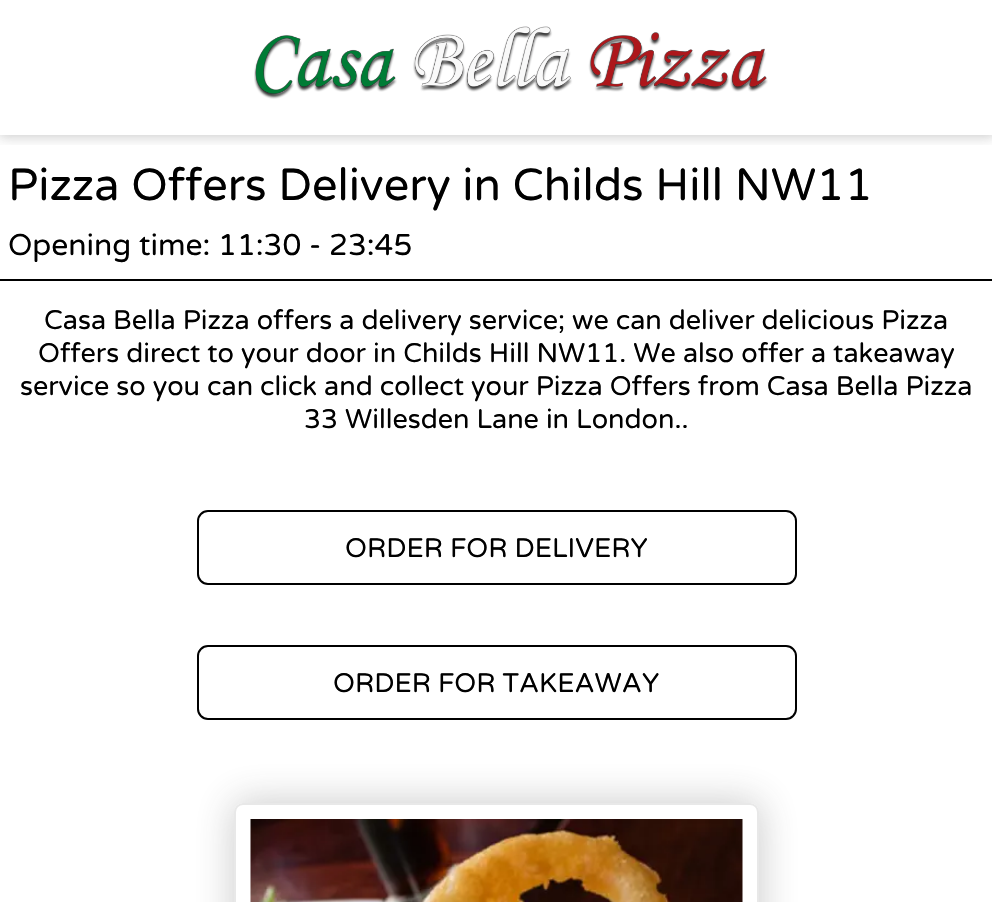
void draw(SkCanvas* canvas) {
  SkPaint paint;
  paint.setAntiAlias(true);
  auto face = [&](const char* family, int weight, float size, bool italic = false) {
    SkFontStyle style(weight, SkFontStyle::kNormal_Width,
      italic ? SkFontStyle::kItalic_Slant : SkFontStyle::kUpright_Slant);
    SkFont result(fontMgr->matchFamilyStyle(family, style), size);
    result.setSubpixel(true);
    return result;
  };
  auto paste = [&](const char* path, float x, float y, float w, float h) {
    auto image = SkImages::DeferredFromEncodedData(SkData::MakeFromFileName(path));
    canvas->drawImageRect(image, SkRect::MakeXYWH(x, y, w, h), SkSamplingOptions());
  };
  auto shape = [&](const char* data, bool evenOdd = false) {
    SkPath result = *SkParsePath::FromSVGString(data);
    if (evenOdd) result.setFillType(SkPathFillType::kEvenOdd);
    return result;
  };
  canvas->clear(0xffffffff);
  canvas->save();
  canvas->clipRect(SkRect::MakeXYWH(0, 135, 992, 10));
  paint.setColor(0x40353535);
  paint.setMaskFilter(SkMaskFilter::MakeBlur(kNormal_SkBlurStyle, 6));
  canvas->drawRect(SkRect::MakeXYWH(-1, -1, 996, 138), paint);
  paint.setMaskFilter(nullptr);
  canvas->restore();
  paste("img/1.png", 254, 26, 514, 73);
  paint.setColor(0xff000000);
  canvas->drawRect(SkRect::MakeXYWH(0, 279, 992, 2), paint);
  paint.setStroke(true);
  paint.setStrokeWidth(2);
  canvas->drawRoundRect(SkRect::MakeXYWH(198, 511, 598, 73), 10, 10, paint);
  canvas->drawRoundRect(SkRect::MakeXYWH(198, 646, 598, 73), 10, 10, paint);
  paint.setStroke(false);
  paint.setColor(0x40353535);
  paint.setMaskFilter(SkMaskFilter::MakeBlur(kNormal_SkBlurStyle, 19));
  canvas->drawRoundRect(SkRect::MakeXYWH(233, 801, 528, 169), 11, 11, paint);
  paint.setMaskFilter(nullptr);
  paint.setColor(0xffffffff);
  canvas->drawPath(shape("M243 803H750C755 803 759 807 759 812V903H234V812C234 807 238 803 243 803Z"), paint);
  paint.setStroke(true);
  paint.setColor(0xffe8e8e8);
  canvas->drawRoundRect(SkRect::MakeXYWH(235, 804, 523, 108), 8, 8, paint);
  paste("img/2.png", 250, 819, 493, 83);
  auto f0 = face("Varela Round", 400, 45);
  paint.setStroke(false);
  paint.setColor(0xff000000);
  canvas->drawString("Pizza Offers Delivery in Childs Hill NW11", 8, 200, f0, paint);
  auto f1 = face("Varela Round", 400, 30);
  canvas->drawString("Opening time: 11:30 - 23:45", 8, 255, f1, paint);
  auto f2 = face("Varela Round", 400, 27);
  {
    const struct { const char* s; float x, y; } items[] = {
      {"Casa Bella Pizza offers a delivery service; we can deliver delicious Pizza", 44, 329},
      {"Offers direct to your door in Childs Hill NW11. We also offer a takeaway", 38, 362},
      {"service so you can click and collect your Pizza Offers from Casa Bella Pizza", 20, 395},
      {"33 Willesden Lane in London..", 304, 428},
      {"ORDER FOR DELIVERY", 345, 557},
      {"ORDER FOR TAKEAWAY", 333, 692},
    };
    for (auto [s, x, y] : items) {
      canvas->drawString(s, x, y, f2, paint);
    }
  }
}
